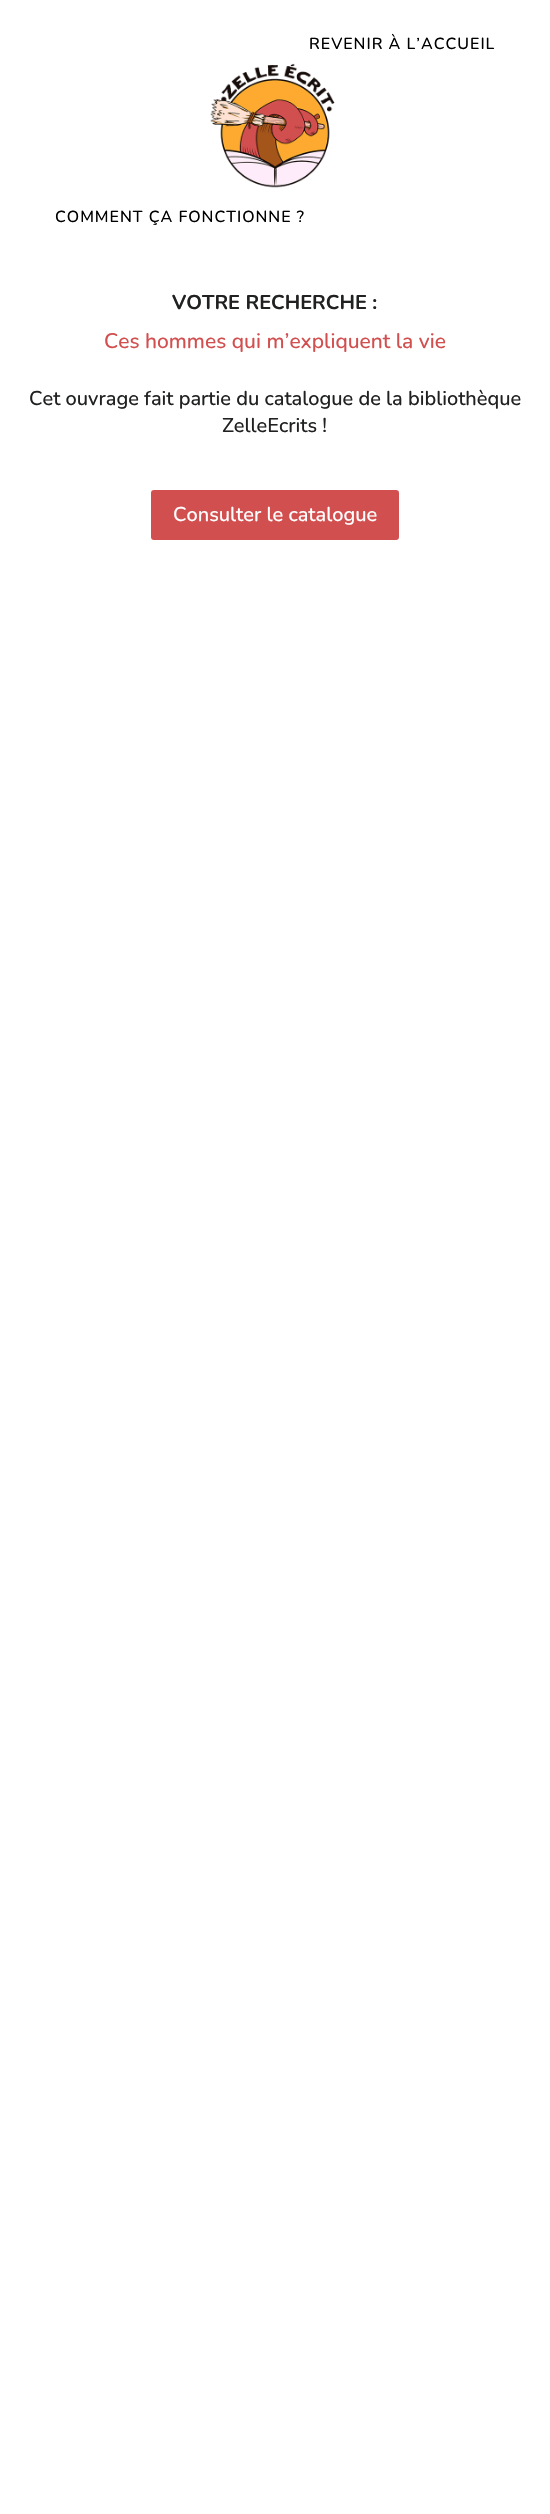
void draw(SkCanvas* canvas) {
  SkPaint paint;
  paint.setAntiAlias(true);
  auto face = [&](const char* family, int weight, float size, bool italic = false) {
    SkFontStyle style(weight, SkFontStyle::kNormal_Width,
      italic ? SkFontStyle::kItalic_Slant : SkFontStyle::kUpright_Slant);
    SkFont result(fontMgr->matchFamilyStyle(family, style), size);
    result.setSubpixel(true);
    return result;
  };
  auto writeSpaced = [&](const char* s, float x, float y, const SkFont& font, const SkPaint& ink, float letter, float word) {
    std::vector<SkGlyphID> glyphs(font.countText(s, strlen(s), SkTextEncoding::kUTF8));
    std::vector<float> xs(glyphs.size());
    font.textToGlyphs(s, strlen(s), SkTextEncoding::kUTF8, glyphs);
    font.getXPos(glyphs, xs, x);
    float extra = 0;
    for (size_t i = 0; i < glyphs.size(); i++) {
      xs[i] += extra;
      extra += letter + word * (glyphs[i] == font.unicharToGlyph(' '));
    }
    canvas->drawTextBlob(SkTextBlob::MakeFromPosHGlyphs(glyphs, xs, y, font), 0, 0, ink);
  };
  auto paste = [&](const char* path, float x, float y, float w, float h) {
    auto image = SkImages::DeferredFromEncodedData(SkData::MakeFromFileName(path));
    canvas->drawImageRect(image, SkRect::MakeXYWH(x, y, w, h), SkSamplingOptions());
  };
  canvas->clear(0xffffffff);
  paste("img/1.png", 210, 63, 125, 125);
  paint.setColor(0xffd24f50);
  canvas->drawRoundRect(SkRect::MakeXYWH(152, 491, 246, 48), 2, 2, paint);
  paint.setStroke(true);
  paint.setStrokeWidth(2);
  canvas->drawRoundRect(SkRect::MakeXYWH(152, 491, 246, 48), 2, 2, paint);
  auto f0 = face("Nunito", 500, 16);
  paint.setStroke(false);
  paint.setColor(0xff000000);
  writeSpaced("REVENIR À L’ACCUEIL", 309, 49, f0, paint, 1, 0);
  writeSpaced("COMMENT ÇA FONCTIONNE ?", 55, 222, f0, paint, 1, 0);
  auto f1 = face("Nunito", 700, 20);
  paint.setColor(0xff202121);
  canvas->drawString("VOTRE RECHERCHE :", 172, 309, f1, paint);
  auto f2 = face("Nunito", 500, 21);
  paint.setColor(0xffd24f50);
  canvas->drawString("Ces hommes qui m’expliquent la vie", 104, 348, f2, paint);
  auto f3 = face("Nunito", 500, 20);
  paint.setColor(0xff202121);
  canvas->drawString("Cet ouvrage fait partie du catalogue de la bibliothèque", 29, 405, f3, paint);
  canvas->drawString("ZelleEcrits !", 222, 432, f3, paint);
  paint.setColor(0xffffffff);
  canvas->drawString("Consulter le catalogue", 173, 521, f3, paint);
}
